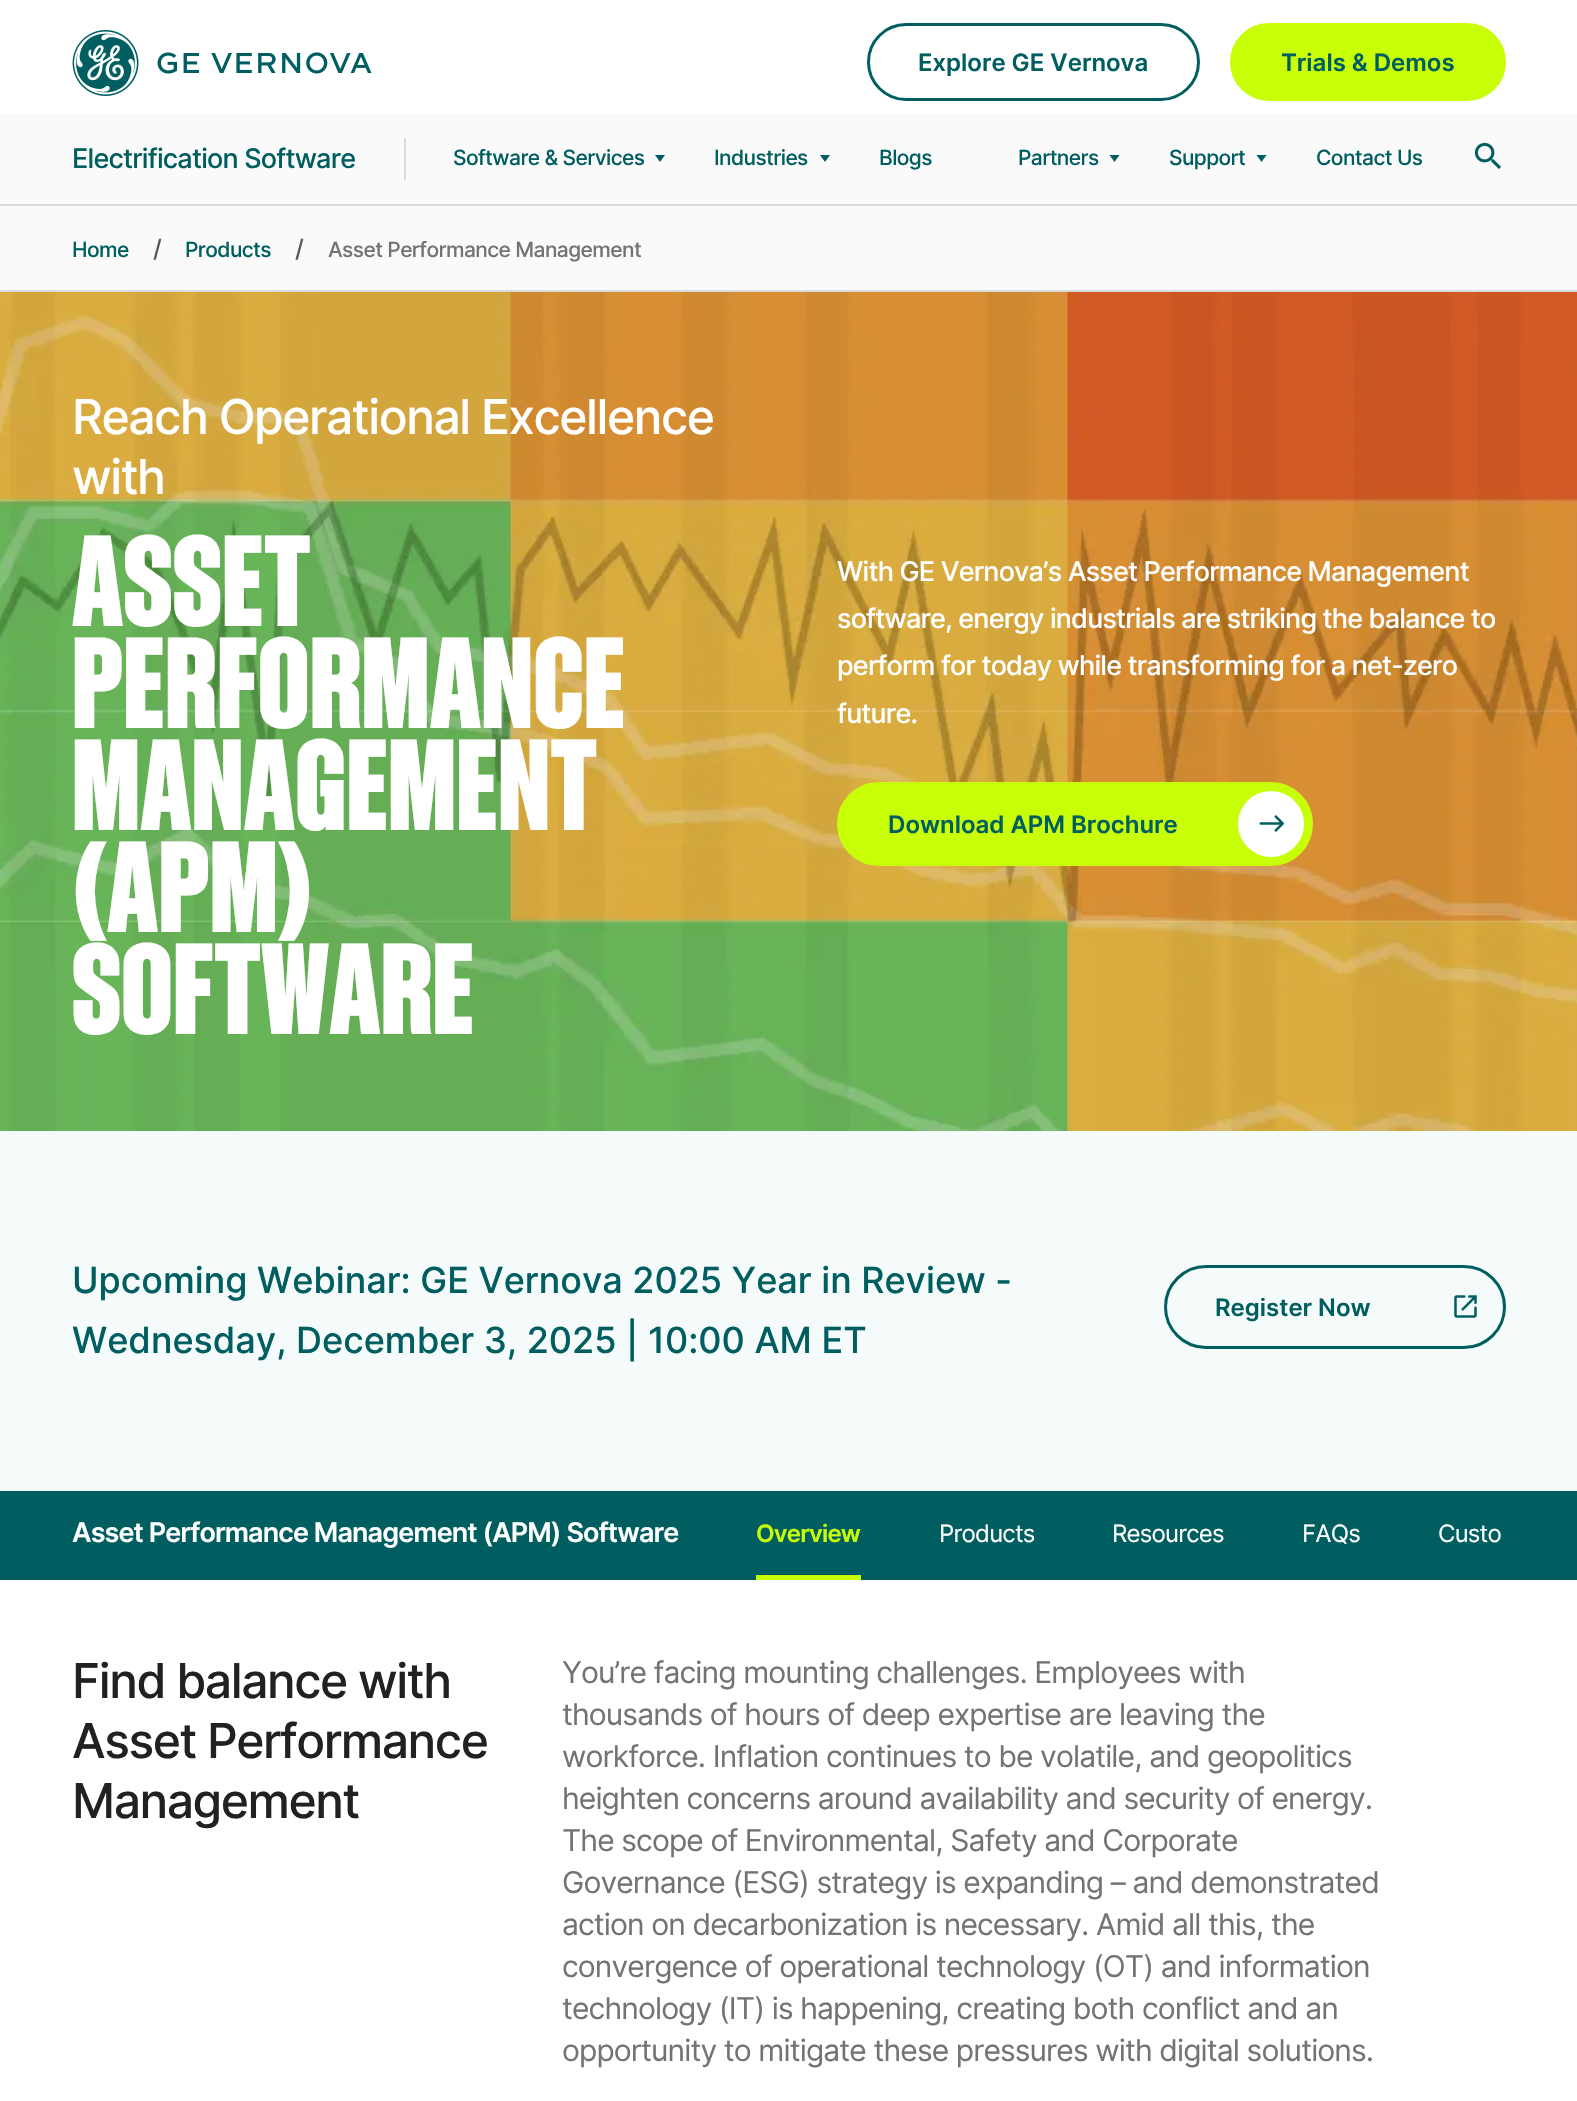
void draw(SkCanvas* canvas) {
  SkPaint paint;
  paint.setAntiAlias(true);
  auto face = [&](const char* family, int weight, float size, bool italic = false) {
    SkFontStyle style(weight, SkFontStyle::kNormal_Width,
      italic ? SkFontStyle::kItalic_Slant : SkFontStyle::kUpright_Slant);
    SkFont result(fontMgr->matchFamilyStyle(family, style), size);
    result.setSubpixel(true);
    return result;
  };
  auto writeSpaced = [&](const char* s, float x, float y, const SkFont& font, const SkPaint& ink, float letter, float word) {
    std::vector<SkGlyphID> glyphs(font.countText(s, strlen(s), SkTextEncoding::kUTF8));
    std::vector<float> xs(glyphs.size());
    font.textToGlyphs(s, strlen(s), SkTextEncoding::kUTF8, glyphs);
    font.getXPos(glyphs, xs, x);
    float extra = 0;
    for (size_t i = 0; i < glyphs.size(); i++) {
      xs[i] += extra;
      extra += letter + word * (glyphs[i] == font.unicharToGlyph(' '));
    }
    canvas->drawTextBlob(SkTextBlob::MakeFromPosHGlyphs(glyphs, xs, y, font), 0, 0, ink);
  };
  auto paste = [&](const char* path, float x, float y, float w, float h) {
    auto image = SkImages::DeferredFromEncodedData(SkData::MakeFromFileName(path));
    canvas->drawImageRect(image, SkRect::MakeXYWH(x, y, w, h), SkSamplingOptions());
  };
  auto shape = [&](const char* data, bool evenOdd = false) {
    SkPath result = *SkParsePath::FromSVGString(data);
    if (evenOdd) result.setFillType(SkPathFillType::kEvenOdd);
    return result;
  };
  canvas->clear(0xfff5fbfb);
  paint.setColor(0xfffafafa);
  canvas->drawRect(SkRect::MakeXYWH(0, 114, 1577, 176), paint);
  paint.setColor(0xffffffff);
  canvas->drawRect(SkRect::MakeXYWH(0, 0, 1577, 114), paint);
  paste("img/1.png", 72, 30, 300, 66);
  paint.setStroke(true);
  paint.setStrokeWidth(3);
  paint.setColor(0xff005e60);
  canvas->drawRoundRect(SkRect::MakeXYWH(868.5f, 24.5f, 330, 75), 37.5f, 37.5f, paint);
  paint.setStroke(false);
  paint.setColor(0xffc8ff08);
  canvas->drawRoundRect(SkRect::MakeXYWH(1231.5f, 24.5f, 273, 75), 37.5f, 37.5f, paint);
  paint.setStroke(true);
  canvas->drawRoundRect(SkRect::MakeXYWH(1231.5f, 24.5f, 273, 75), 37.5f, 37.5f, paint);
  paint.setStroke(false);
  paint.setColor(0xffd7dbdb);
  canvas->drawRect(SkRect::MakeXYWH(404, 138, 2, 42), paint);
  paint.setColor(0xff005e60);
  canvas->drawPath(shape("M660 162L655 155H665Z"), paint);
  canvas->drawPath(shape("M825 162L820 155H830Z"), paint);
  canvas->drawPath(shape("M1114.5 162L1109.5 155H1119.5Z"), paint);
  canvas->drawPath(shape("M1261.5 162L1256.5 155H1266.5Z"), paint);
  paste("img/2.png", 1474, 142, 27, 27);
  paint.setColor(0xffd7dbdb);
  canvas->drawRect(SkRect::MakeXYWH(0, 204, 1577, 2), paint);
  canvas->drawRect(SkRect::MakeXYWH(0, 290, 1577, 2), paint);
  paste("img/3.png", 0, 292, 1577, 839);
  paint.setColor(0xffc8ff08);
  canvas->drawRoundRect(SkRect::MakeXYWH(838.5f, 783.5f, 473, 81), 40.5f, 40.5f, paint);
  paint.setStroke(true);
  canvas->drawRoundRect(SkRect::MakeXYWH(838.5f, 783.5f, 473, 81), 40.5f, 40.5f, paint);
  paint.setStroke(false);
  paint.setColor(0xffffffff);
  canvas->drawCircle(1271, 824, 33, paint);
  paste("img/4.png", 1259, 815, 25, 17);
  paint.setStroke(true);
  paint.setColor(0xff005e60);
  canvas->drawRoundRect(SkRect::MakeXYWH(1165.5f, 1266.5f, 339, 81), 40.5f, 40.5f, paint);
  paste("img/5.png", 1454, 1295, 23, 23);
  paint.setStroke(false);
  {
    const struct { float x, y, w, h; SkColor color; } items[] = {
      {0, 1491, 1577, 89, 0xff005e60},
      {756, 1575, 105, 5, 0xffc8ff08},
      {0, 1580, 1577, 521, 0xffffffff},
    };
    for (auto [x, y, w, h, color] : items) {
      paint.setColor(color);
      canvas->drawRect(SkRect::MakeXYWH(x, y, w, h), paint);
    }
  }
  auto f0 = face("Inter", 600, 24);
  paint.setColor(0xff005e60);
  canvas->drawString("Explore GE Vernova", 918, 71, f0, paint);
  canvas->drawString("Trials & Demos", 1281, 71, f0, paint);
  auto f1 = face("Inter", 500, 27);
  writeSpaced("Electrification Software", 72, 168, f1, paint, -0.8f, 0);
  auto f2 = face("Inter", 500, 21);
  {
    const struct { const char* s; float x, y; } items[] = {
      {"Software & Services", 453, 165},
      {"Industries", 714, 165},
      {"Blogs", 879, 165},
      {"Partners", 1018, 165},
      {"Support", 1169, 165},
      {"Contact Us", 1316, 165},
      {"Home", 72, 257},
    };
    for (auto [s, x, y] : items) {
      writeSpaced(s, x, y, f2, paint, -0.6f, 0);
    }
  }
  auto f3 = face("Inter", 500, 24);
  paint.setColor(0xff575a5d);
  canvas->drawString("/", 153, 257, f3, paint);
  paint.setColor(0xff005e60);
  writeSpaced("Products", 185, 257, f2, paint, -0.6f, 0);
  paint.setColor(0xff575a5d);
  canvas->drawString("/", 295, 257, f3, paint);
  paint.setColor(0xff737373);
  writeSpaced("Asset Performance Management", 328, 257, f2, paint, -0.6f, 0);
  auto f4 = face("Inter", 500, 48);
  paint.setColor(0xffffffff);
  writeSpaced("Reach Operational Excellence", 72, 434, f4, paint, -1.45f, 0);
  writeSpaced("with", 72, 494, f4, paint, -1.45f, 0);
  auto f5 = face("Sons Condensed", 800, 126);
  {
    const struct { const char* s; float x, y; } items[] = {
      {"ASSET", 72, 626},
      {"PERFORMANCE", 72, 728},
      {"MANAGEMENT", 72, 830},
      {"(APM)", 72, 932},
      {"SOFTWARE", 72, 1034},
    };
    for (auto [s, x, y] : items) {
      writeSpaced(s, x, y, f5, paint, 0.25f, 0);
    }
  }
  {
    const struct { const char* s; float x, y; } items[] = {
      {"With GE Vernova’s Asset Performance Management", 837, 581},
      {"software, energy industrials are striking the balance to", 837, 628},
      {"perform for today while transforming for a net-zero", 837, 675},
      {"future.", 837, 723},
    };
    for (auto [s, x, y] : items) {
      writeSpaced(s, x, y, f1, paint, -0.82f, 0);
    }
  }
  paint.setColor(0xff005e60);
  canvas->drawString("Download APM Brochure", 888, 833, f0, paint);
  auto f6 = face("Inter", 500, 36);
  canvas->drawString("Upcoming Webinar: GE Vernova 2025 Year in Review -", 72, 1293, f6, paint);
  canvas->drawString("Wednesday, December 3, 2025 | 10:00 AM ET", 72, 1353, f6, paint);
  canvas->drawString("Register Now", 1215, 1316, f0, paint);
  auto f7 = face("Inter", 600, 27);
  paint.setColor(0xffffffff);
  writeSpaced("Asset Performance Management (APM) Software", 72, 1542, f7, paint, -0.9f, 0);
  paint.setColor(0xffc8ff08);
  writeSpaced("Overview", 756, 1542, f0, paint, -0.8f, 0);
  paint.setColor(0xff212121);
  {
    const struct { const char* s; float x, y; } items[] = {
      {"Find balance with", 72, 1698},
      {"Asset Performance", 72, 1758},
      {"Management", 72, 1818},
    };
    for (auto [s, x, y] : items) {
      writeSpaced(s, x, y, f4, paint, -1.45f, 0);
    }
  }
  auto f8 = face("Inter", 400, 30);
  paint.setColor(0xff737373);
  {
    const struct { const char* s; float x, y; } items[] = {
      {"You’re facing mounting challenges. Employees with", 562, 1683},
      {"thousands of hours of deep expertise are leaving the", 562, 1725},
      {"workforce. Inflation continues to be volatile, and geopolitics", 562, 1767},
      {"heighten concerns around availability and security of energy.", 562, 1809},
      {"The scope of Environmental, Safety and Corporate", 562, 1851},
      {"Governance (ESG) strategy is expanding – and demonstrated", 562, 1893},
      {"action on decarbonization is necessary. Amid all this, the", 562, 1935},
      {"convergence of operational technology (OT) and information", 562, 1977},
      {"technology (IT) is happening, creating both conflict and an", 562, 2019},
      {"opportunity to mitigate these pressures with digital solutions.", 562, 2061},
    };
    for (auto [s, x, y] : items) {
      writeSpaced(s, x, y, f8, paint, -0.9f, 0);
    }
  }
  auto f9 = face("Inter", 400, 24);
  paint.setColor(0xffffffff);
  {
    const struct { const char* s; float x, y; } items[] = {
      {"Products", 939, 1542},
      {"Resources", 1112, 1542},
      {"FAQs", 1302, 1542},
      {"Custo", 1438, 1542},
    };
    for (auto [s, x, y] : items) {
      writeSpaced(s, x, y, f9, paint, -0.8f, 0);
    }
  }
}
